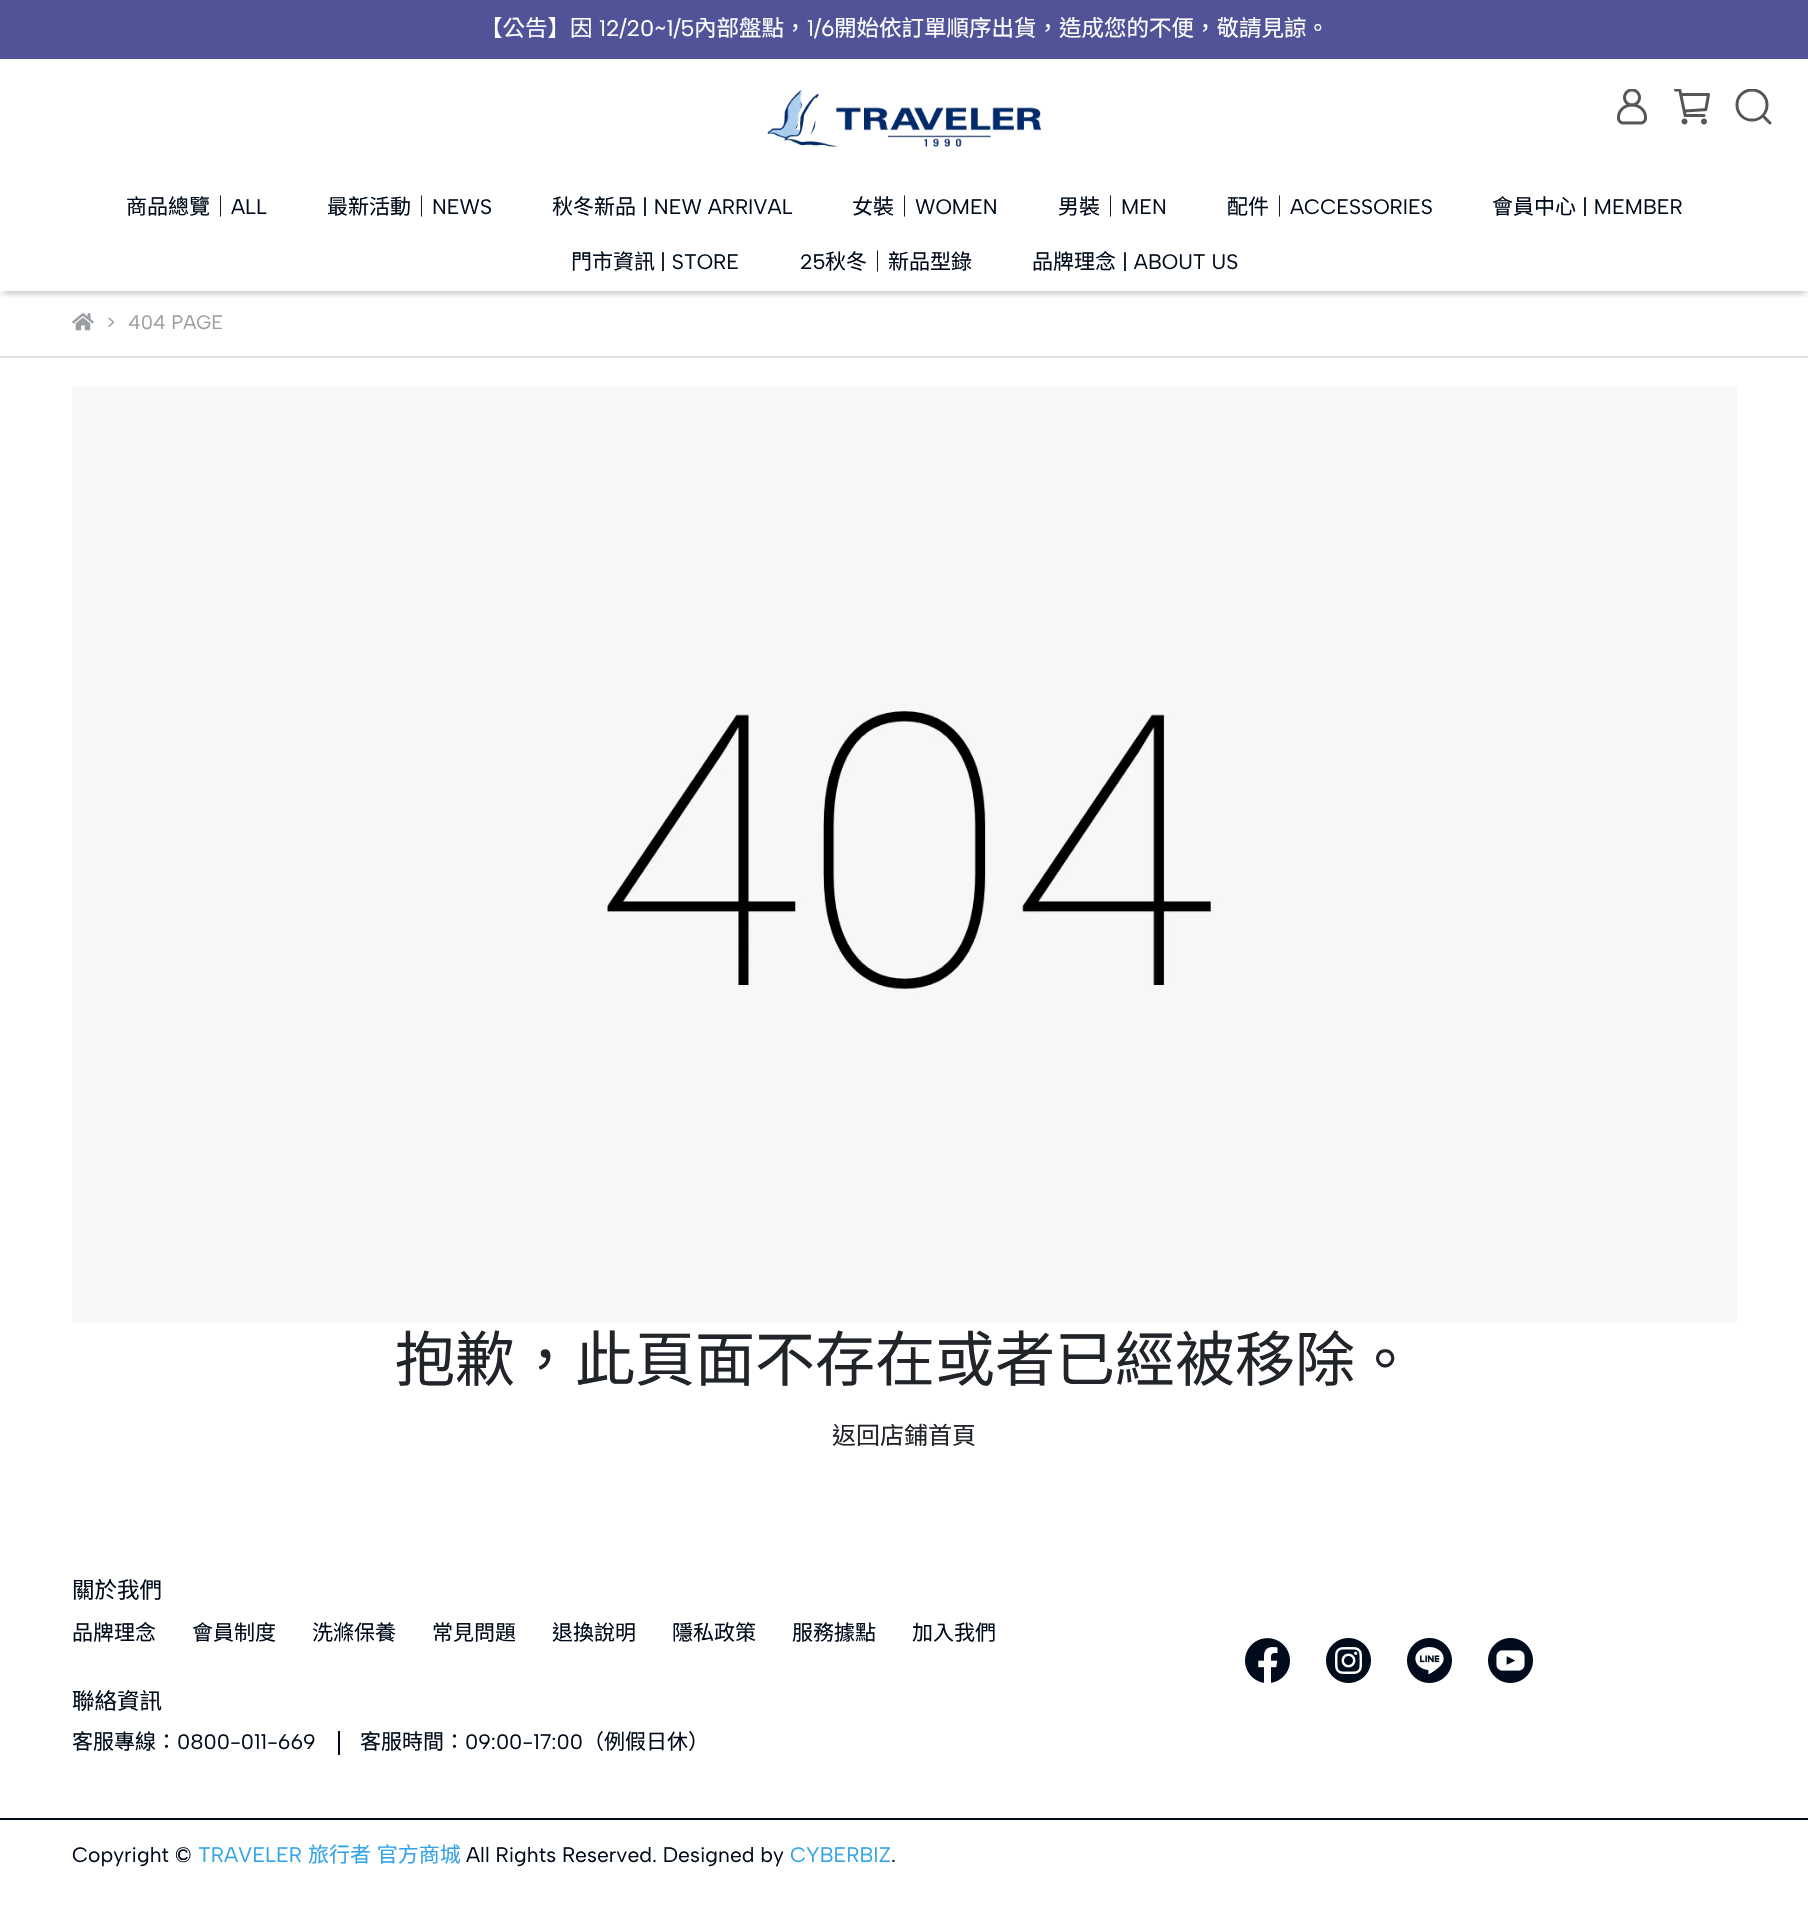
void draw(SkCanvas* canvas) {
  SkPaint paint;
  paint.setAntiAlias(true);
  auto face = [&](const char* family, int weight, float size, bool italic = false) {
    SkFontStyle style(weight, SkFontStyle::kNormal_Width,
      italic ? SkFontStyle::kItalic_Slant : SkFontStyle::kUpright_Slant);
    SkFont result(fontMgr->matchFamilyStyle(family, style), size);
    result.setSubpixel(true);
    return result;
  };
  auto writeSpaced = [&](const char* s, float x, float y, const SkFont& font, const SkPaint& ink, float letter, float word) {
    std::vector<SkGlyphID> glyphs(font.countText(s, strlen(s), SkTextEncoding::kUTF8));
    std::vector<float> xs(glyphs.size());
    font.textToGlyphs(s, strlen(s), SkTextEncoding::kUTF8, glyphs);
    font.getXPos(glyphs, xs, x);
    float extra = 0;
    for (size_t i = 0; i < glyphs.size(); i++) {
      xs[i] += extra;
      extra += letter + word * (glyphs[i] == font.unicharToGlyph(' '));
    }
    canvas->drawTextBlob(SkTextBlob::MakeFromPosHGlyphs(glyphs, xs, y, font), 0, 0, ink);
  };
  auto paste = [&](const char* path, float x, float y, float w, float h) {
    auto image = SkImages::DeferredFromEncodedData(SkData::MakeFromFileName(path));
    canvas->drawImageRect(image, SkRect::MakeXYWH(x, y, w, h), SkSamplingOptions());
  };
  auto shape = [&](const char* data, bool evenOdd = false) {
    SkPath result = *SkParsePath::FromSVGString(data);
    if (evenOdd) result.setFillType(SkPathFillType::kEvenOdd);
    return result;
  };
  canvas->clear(0xffffffff);
  paint.setColor(0xff505398);
  canvas->drawRect(SkRect::MakeXYWH(0, 0, 1808, 59), paint);
  paste("img/1.png", 767, 90, 275, 57);
  paste("img/2.png", 1617, 89, 30, 36);
  paste("img/3.png", 1674, 89, 36, 36);
  canvas->save();
  canvas->clipRect(SkRect::MakeXYWH(1734, 89, 39, 36));
  paint.setStroke(true);
  paint.setStrokeWidth(3);
  paint.setStrokeCap(SkPaint::kRound_Cap);
  paint.setStrokeJoin(SkPaint::kRound_Join);
  paint.setColor(0xff565656);
  canvas->drawPath(shape("M1767 105C1767 113.5 1760.5 120 1752 120C1743.5 120 1737 113.5 1737 105C1737 96.5 1743.5 90 1752 90C1760.5 90 1767 96.5 1767 105Z"), paint);
  canvas->restore();
  canvas->drawPath(shape("M1764 117L1770 123"), paint);
  canvas->save();
  canvas->clipRect(SkRect::MakeXYWH(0, 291, 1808, 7));
  paint.setStroke(false);
  paint.setColor(0x33000000);
  paint.setMaskFilter(SkMaskFilter::MakeBlur(kNormal_SkBlurStyle, 3));
  canvas->drawRect(SkRect::MakeXYWH(3, 189, 1803, 105), paint);
  paint.setMaskFilter(nullptr);
  canvas->restore();
  paint.setColor(0xffe2e2e2);
  canvas->drawRect(SkRect::MakeXYWH(0, 356, 1808, 2), paint);
  paste("img/4.png", 72, 313, 22, 18);
  paste("img/5.png", 72, 387, 1665, 936);
  paint.setColor(0xff000c1c);
  canvas->drawRect(SkRect::MakeXYWH(338, 1731, 2, 24), paint);
  paste("img/6.png", 1245, 1638, 45, 45);
  paste("img/7.png", 1326, 1638, 45, 45);
  paste("img/8.png", 1407, 1638, 45, 45);
  paste("img/9.png", 1488, 1638, 45, 45);
  canvas->drawRect(SkRect::MakeXYWH(0, 1818, 1808, 2), paint);
  auto f0 = face("Noto Sans CJK TC", 400, 22.5f);
  paint.setColor(0xffffffff);
  canvas->drawString("【公告】因", 480, 36, f0, paint);
  auto f1 = face("Albert Sans", 400, 22.5f);
  canvas->drawString("12/20~1/5", 599, 36, f1, paint);
  canvas->drawString("內部盤點，", 694, 36, f0, paint);
  canvas->drawString("1/6", 807, 36, f1, paint);
  canvas->drawString("開始依訂單順序出貨，造成您的不便，敬請見諒。", 834, 36, f0, paint);
  auto f2 = face("Noto Sans CJK TC", 400, 21);
  paint.setColor(0xff000c1c);
  canvas->drawString("商品總覽｜", 126, 214, f2, paint);
  auto f3 = face("Albert Sans", 400, 21);
  canvas->drawString("ALL", 231, 214, f3, paint);
  canvas->drawString("最新活動｜", 327, 214, f2, paint);
  canvas->drawString("NEWS", 432, 214, f3, paint);
  canvas->drawString("秋冬新品", 552, 214, f2, paint);
  canvas->drawString("| NEW ARRIVAL", 642, 214, f3, paint);
  canvas->drawString("女裝｜", 852, 214, f2, paint);
  canvas->drawString("WOMEN", 915, 214, f3, paint);
  canvas->drawString("男裝｜", 1058, 214, f2, paint);
  canvas->drawString("MEN", 1121, 214, f3, paint);
  canvas->drawString("配件｜", 1227, 214, f2, paint);
  canvas->drawString("ACCESSORIES", 1290, 214, f3, paint);
  canvas->drawString("會員中心", 1492, 214, f2, paint);
  canvas->drawString("| MEMBER", 1582, 214, f3, paint);
  canvas->drawString("門市資訊", 571, 269, f2, paint);
  canvas->drawString("| STORE", 660, 269, f3, paint);
  canvas->drawString("25", 800, 269, f3, paint);
  canvas->drawString("秋冬｜新品型錄", 825, 269, f2, paint);
  canvas->drawString("品牌理念", 1032, 269, f2, paint);
  canvas->drawString("| ABOUT US", 1122, 269, f3, paint);
  auto f4 = face("Albert Sans", 400, 19.5f);
  paint.setColor(0xff9a9ea2);
  canvas->drawString(">", 106, 329, f4, paint);
  canvas->drawString("404 PAGE", 128, 329, f4, paint);
  auto f5 = face("Noto Sans CJK TC", 400, 60);
  paint.setColor(0xff212529);
  canvas->drawString("抱歉，此頁面不存在或者已經被移除。", 395, 1381, f5, paint);
  auto f6 = face("Noto Sans CJK TC", 400, 24);
  canvas->drawString("返回店鋪首頁", 832, 1444, f6, paint);
  paint.setColor(0xff000c1c);
  canvas->drawString("關於我們", 72, 1598, f0, paint);
  {
    const struct { const char* s; float x, y; } items[] = {
      {"品牌理念", 72, 1640},
      {"會員制度", 192, 1640},
      {"洗滌保養", 312, 1640},
      {"常見問題", 432, 1640},
      {"退換說明", 552, 1640},
      {"隱私政策", 672, 1640},
      {"服務據點", 792, 1640},
      {"加入我們", 912, 1640},
    };
    for (auto [s, x, y] : items) {
      canvas->drawString(s, x, y, f2, paint);
    }
  }
  canvas->drawString("聯絡資訊", 72, 1709, f0, paint);
  canvas->drawString("客服專線：", 72, 1749, f2, paint);
  canvas->drawString("0800-011-669", 177, 1749, f3, paint);
  canvas->drawString("客服時間：", 360, 1749, f2, paint);
  canvas->drawString("09:00-17:00", 465, 1749, f3, paint);
  canvas->drawString("（例假日休）", 583, 1749, f2, paint);
  canvas->drawString("Copyright ©", 72, 1862, f3, paint);
  paint.setColor(0xff33a4e8);
  canvas->drawString("TRAVELER", 198, 1862, f3, paint);
  writeSpaced("旅行者 官方商城", 308, 1862, f2, paint, 0, 1);
  paint.setColor(0xff000c1c);
  canvas->drawString("All Rights Reserved. Designed by", 466, 1862, f3, paint);
  paint.setColor(0xff33a4e8);
  canvas->drawString("CYBERBIZ", 790, 1862, f3, paint);
  paint.setColor(0xff000c1c);
  canvas->drawString(".", 891, 1862, f3, paint);
}
